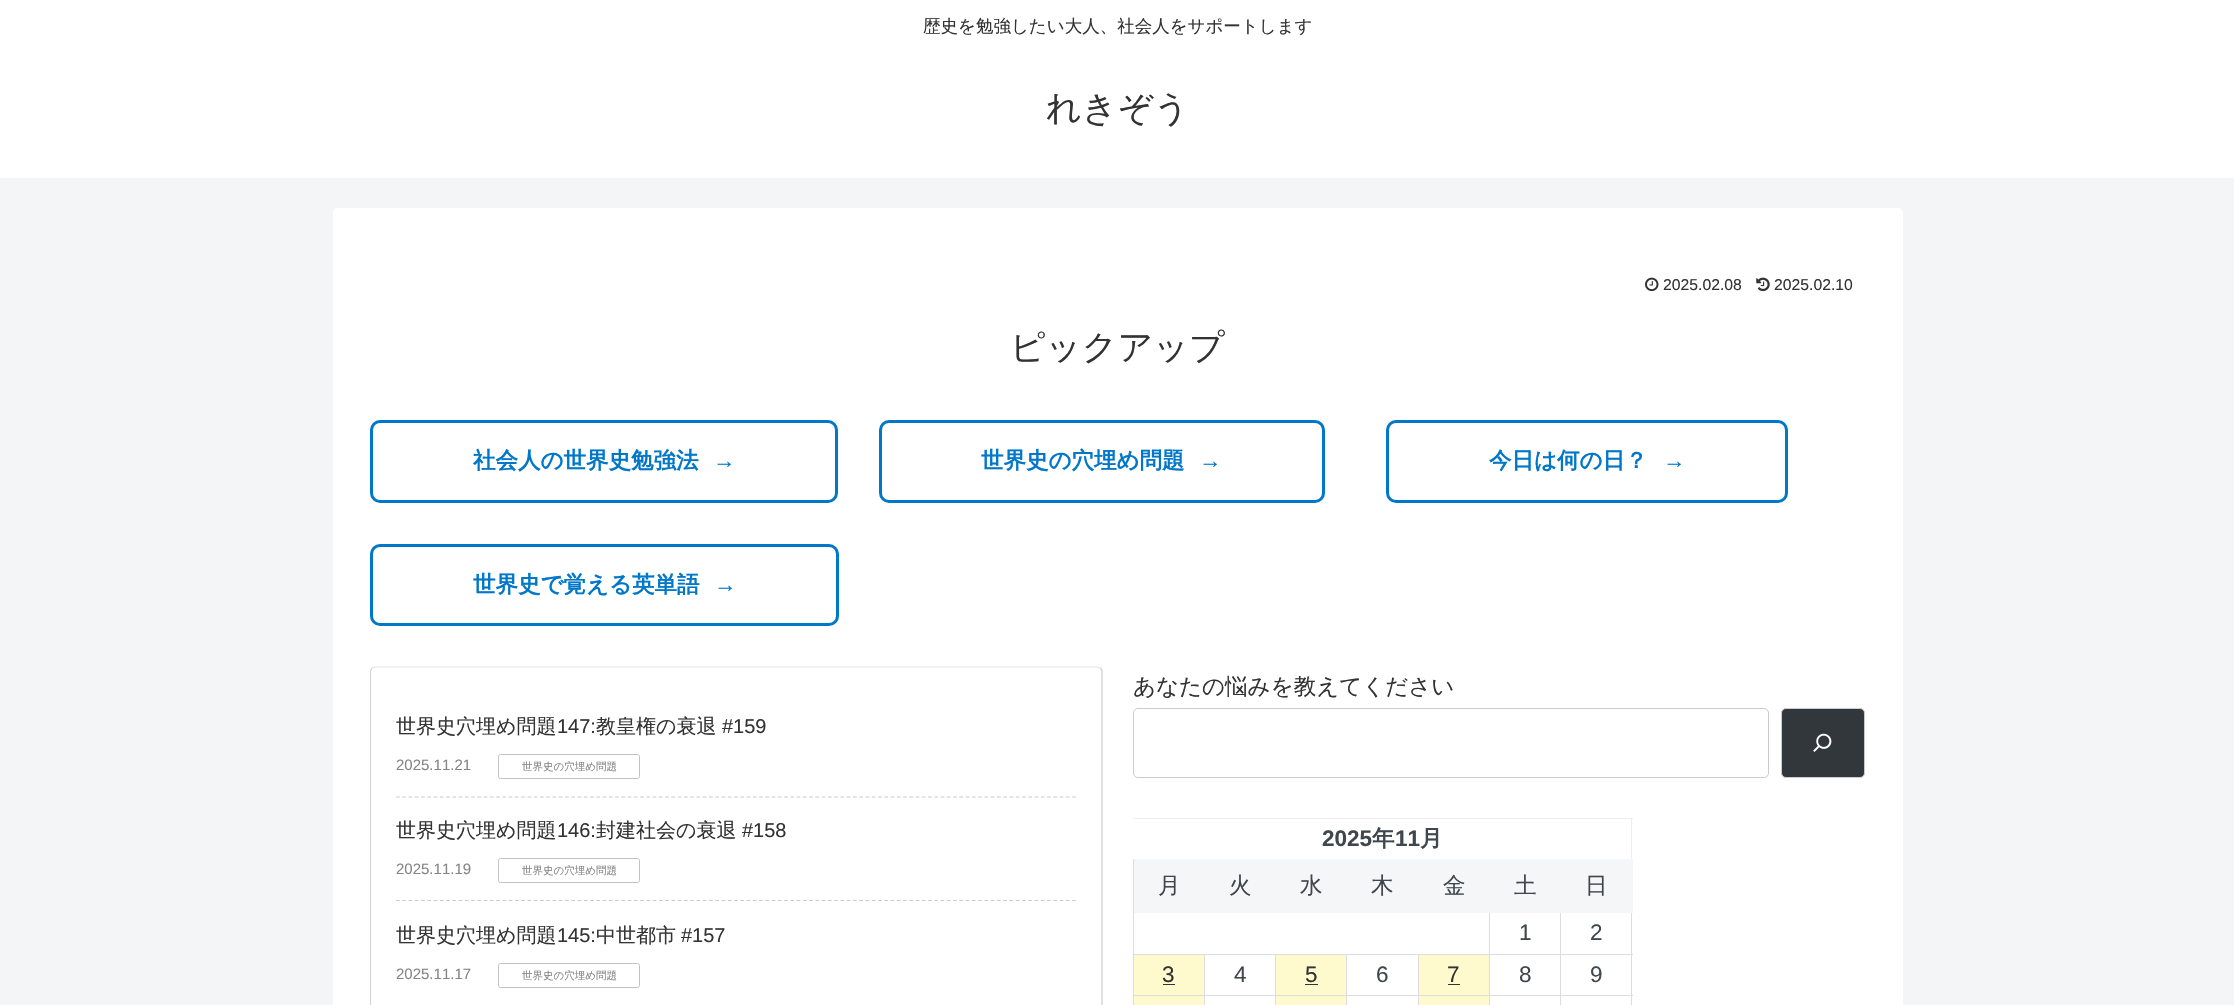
void draw(SkCanvas* canvas) {
  SkPaint paint;
  paint.setAntiAlias(true);
  auto face = [&](const char* family, int weight, float size, bool italic = false) {
    SkFontStyle style(weight, SkFontStyle::kNormal_Width,
      italic ? SkFontStyle::kItalic_Slant : SkFontStyle::kUpright_Slant);
    SkFont result(fontMgr->matchFamilyStyle(family, style), size);
    result.setSubpixel(true);
    return result;
  };
  auto paste = [&](const char* path, float x, float y, float w, float h) {
    auto image = SkImages::DeferredFromEncodedData(SkData::MakeFromFileName(path));
    canvas->drawImageRect(image, SkRect::MakeXYWH(x, y, w, h), SkSamplingOptions());
  };
  auto shape = [&](const char* data, bool evenOdd = false) {
    SkPath result = *SkParsePath::FromSVGString(data);
    if (evenOdd) result.setFillType(SkPathFillType::kEvenOdd);
    return result;
  };
  canvas->clear(0xfff4f5f7);
  paint.setColor(0xffffffff);
  canvas->drawRect(SkRect::MakeXYWH(0, 0, 2234, 178), paint);
  canvas->drawRoundRect(SkRect::MakeXYWH(333, 208, 1570, 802), 5, 5, paint);
  paste("img/1.png", 1645, 277, 14, 15);
  paste("img/2.png", 1756, 277, 14, 15);
  paint.setStroke(true);
  paint.setStrokeWidth(3);
  paint.setColor(0xff0077c8);
  canvas->drawRoundRect(SkRect::MakeXYWH(371.5f, 421.5f, 465, 80), 8.5f, 8.5f, paint);
  canvas->drawRoundRect(SkRect::MakeXYWH(880.5f, 421.5f, 443, 80), 8.5f, 8.5f, paint);
  canvas->drawRoundRect(SkRect::MakeXYWH(1387.5f, 421.5f, 399, 80), 8.5f, 8.5f, paint);
  canvas->drawRoundRect(SkRect::MakeXYWH(371.5f, 545.5f, 466, 79), 8.5f, 8.5f, paint);
  paint.setStrokeWidth(1.2f);
  paint.setColor(0xffe3e3e3);
  canvas->drawPath(shape("M372 668L375 667H1097.5L1100.5 668"), paint);
  paint.setColor(0xffcecece);
  canvas->drawPath(shape("M1100.5 668L1102 671V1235L1100.5 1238"), paint);
  paint.setColor(0xffd6d6d6);
  canvas->drawPath(shape("M372 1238L370.5 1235V671L372 668"), paint);
  paint.setColor(0xffcccccc);
  paint.setPathEffect(SkDashPathEffect::Make({{3.75f, 2.51f}}, 0));
  canvas->drawPath(shape("M396 797H1076"), paint);
  paint.setPathEffect(nullptr);
  paint.setStrokeWidth(1);
  paint.setColor(0xffc2c2c2);
  canvas->drawRoundRect(SkRect::MakeXYWH(498.5f, 754.5f, 141, 24), 2, 2, paint);
  paint.setStrokeWidth(1.2f);
  paint.setColor(0xffcccccc);
  paint.setPathEffect(SkDashPathEffect::Make({{3.75f, 2.51f}}, 0));
  canvas->drawPath(shape("M396 900.5H1076"), paint);
  paint.setPathEffect(nullptr);
  paint.setStrokeWidth(1);
  paint.setColor(0xffc2c2c2);
  canvas->drawRoundRect(SkRect::MakeXYWH(498.5f, 858.5f, 141, 24), 2, 2, paint);
  paint.setStrokeWidth(1.2f);
  paint.setColor(0xffcccccc);
  paint.setPathEffect(SkDashPathEffect::Make({{3.75f, 2.51f}}, 0));
  canvas->drawPath(shape("M396 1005.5H1076"), paint);
  paint.setPathEffect(nullptr);
  paint.setStrokeWidth(1);
  paint.setColor(0xffc2c2c2);
  canvas->drawRoundRect(SkRect::MakeXYWH(498.5f, 963.5f, 141, 24), 2, 2, paint);
  paint.setColor(0xffcccccc);
  canvas->drawRoundRect(SkRect::MakeXYWH(1133.5f, 708.5f, 635, 69), 4.5f, 4.5f, paint);
  paint.setStroke(false);
  paint.setColor(0xff32373c);
  canvas->drawRoundRect(SkRect::MakeXYWH(1781.5f, 708.5f, 83, 69), 4.5f, 4.5f, paint);
  paint.setStroke(true);
  paint.setColor(0xffcccccc);
  canvas->drawRoundRect(SkRect::MakeXYWH(1781.5f, 708.5f, 83, 69), 4.5f, 4.5f, paint);
  paste("img/3.png", 1813, 733, 19, 19);
  paint.setStroke(false);
  {
    const struct { float x, y, w, h; SkColor color; } items[] = {
      {1133, 818, 500, 1, 0xffeeeeee},
      {1631, 818, 1, 41, 0xffeeeeee},
      {1560, 954, 73, 1, 0xffdddddd},
      {1560, 995, 73, 1, 0xffdddddd},
      {1560, 995, 1, 10, 0xffdddddd},
      {1489, 995, 72, 1, 0xffdddddd},
      {1560, 954, 1, 42, 0xffdddddd},
      {1489, 954, 72, 1, 0xffdddddd},
      {1489, 995, 1, 10, 0xffdddddd},
      {1418, 995, 72, 1, 0xffdddddd},
      {1489, 954, 1, 42, 0xffdddddd},
      {1418, 954, 72, 1, 0xffdddddd},
      {1489, 911, 1, 44, 0xffdddddd},
      {1560, 911, 1, 44, 0xffdddddd},
      {1631, 995, 1, 10, 0xffdddddd},
      {1631, 911, 1, 85, 0xffdddddd},
      {1134, 859, 499, 54, 0xfff5f6f7},
      {1418, 995, 1, 10, 0xffdddddd},
      {1346, 995, 73, 1, 0xffdddddd},
      {1418, 954, 1, 42, 0xffdddddd},
      {1346, 954, 73, 1, 0xffdddddd},
      {1346, 995, 1, 10, 0xffdddddd},
      {1275, 995, 73, 1, 0xffdddddd},
      {1346, 954, 1, 42, 0xffdddddd},
      {1275, 954, 73, 1, 0xffdddddd},
      {1275, 995, 1, 10, 0xffdddddd},
      {1204, 995, 72, 1, 0xffdddddd},
      {1275, 954, 1, 42, 0xffdddddd},
      {1204, 954, 72, 1, 0xffdddddd},
      {1204, 995, 1, 10, 0xffdddddd},
      {1133, 995, 72, 1, 0xffdddddd},
      {1204, 954, 1, 42, 0xffdddddd},
      {1133, 954, 72, 1, 0xffdddddd},
      {1133, 995, 1, 10, 0xffdddddd},
      {1133, 859, 1, 137, 0xffdddddd},
      {1134, 955, 70, 40, 0xffffface},
      {1163, 984, 12, 1, 0xff333333},
      {1276, 955, 70, 40, 0xffffface},
      {1305, 984, 13, 1, 0xff333333},
      {1419, 955, 70, 40, 0xffffface},
      {1448, 984, 12, 1, 0xff333333},
      {1134, 996, 70, 9, 0xffffface},
      {1276, 996, 70, 9, 0xffffface},
      {1419, 996, 70, 9, 0xffffface},
    };
    for (auto [x, y, w, h, color] : items) {
      paint.setColor(color);
      canvas->drawRect(SkRect::MakeXYWH(x, y, w, h), paint);
    }
  }
  auto f0 = face("WenQuanYi Zen Hei", 500, 17.5f);
  paint.setColor(0xff333333);
  canvas->drawString("歴史を勉強したい大人、社会人をサポートします", 923, 32, f0, paint);
  auto f1 = face("WenQuanYi Zen Hei", 500, 35);
  canvas->drawString("れきぞう", 1046, 120, f1, paint);
  auto f2 = face("Liberation Sans", 400, 15.75f);
  canvas->drawString("2025.02.08", 1663, 290, f2, paint);
  canvas->drawString("2025.02.10", 1774, 290, f2, paint);
  canvas->drawString("ピックアップ", 1010, 359, f1, paint);
  auto f3 = face("WenQuanYi Zen Hei", 700, 22.5f);
  paint.setColor(0xff0077c8);
  canvas->drawString("社会人の世界史勉強法", 473, 468, f3, paint);
  auto f4 = face("Liberation Sans", 700, 22.5f);
  canvas->drawString("→", 713, 468, f4, paint);
  canvas->drawString("世界史の穴埋め問題", 981, 468, f3, paint);
  canvas->drawString("→", 1199, 468, f4, paint);
  canvas->drawString("今日は何の日？", 1489, 468, f3, paint);
  canvas->drawString("→", 1663, 468, f4, paint);
  canvas->drawString("世界史で覚える英単語", 473, 592, f3, paint);
  canvas->drawString("→", 714, 592, f4, paint);
  auto f5 = face("WenQuanYi Zen Hei", 500, 20);
  paint.setColor(0xff333333);
  canvas->drawString("世界史穴埋め問題", 396, 733, f5, paint);
  auto f6 = face("Liberation Sans", 400, 20);
  canvas->drawString("147:", 557, 733, f6, paint);
  canvas->drawString("教皇権の衰退", 596, 733, f5, paint);
  canvas->drawString("#159", 722, 733, f6, paint);
  auto f7 = face("Liberation Sans", 400, 15);
  paint.setColor(0xff858585);
  canvas->drawString("2025.11.21", 396, 770, f7, paint);
  auto f8 = face("WenQuanYi Zen Hei", 500, 10.5f);
  canvas->drawString("世界史の穴埋め問題", 522, 770, f8, paint);
  paint.setColor(0xff333333);
  canvas->drawString("世界史穴埋め問題", 396, 837, f5, paint);
  canvas->drawString("146:", 557, 837, f6, paint);
  canvas->drawString("封建社会の衰退", 596, 837, f5, paint);
  canvas->drawString("#158", 742, 837, f6, paint);
  paint.setColor(0xff858585);
  canvas->drawString("2025.11.19", 396, 874, f7, paint);
  canvas->drawString("世界史の穴埋め問題", 522, 874, f8, paint);
  paint.setColor(0xff333333);
  canvas->drawString("世界史穴埋め問題", 396, 942, f5, paint);
  canvas->drawString("145:", 557, 942, f6, paint);
  canvas->drawString("中世都市", 596, 942, f5, paint);
  canvas->drawString("#157", 681, 942, f6, paint);
  paint.setColor(0xff858585);
  canvas->drawString("2025.11.17", 396, 979, f7, paint);
  canvas->drawString("世界史の穴埋め問題", 522, 979, f8, paint);
  auto f9 = face("WenQuanYi Zen Hei", 500, 22.5f);
  paint.setColor(0xff333333);
  canvas->drawString("あなたの悩みを教えてください", 1133, 694, f9, paint);
  paint.setColor(0xff40464d);
  canvas->drawString("2025", 1322, 846, f4, paint);
  canvas->drawString("年", 1372, 846, f3, paint);
  canvas->drawString("11", 1395, 846, f4, paint);
  canvas->drawString("月", 1420, 846, f3, paint);
  {
    const struct { const char* s; float x, y; } items[] = {
      {"月", 1158, 893},
      {"火", 1229, 893},
      {"水", 1300, 893},
      {"木", 1371, 893},
      {"金", 1443, 893},
      {"土", 1514, 893},
      {"日", 1585, 893},
    };
    for (auto [s, x, y] : items) {
      canvas->drawString(s, x, y, f9, paint);
    }
  }
  auto f10 = face("Liberation Sans", 400, 22.5f);
  canvas->drawString("1", 1519, 940, f10, paint);
  canvas->drawString("2", 1590, 940, f10, paint);
  paint.setColor(0xff333333);
  canvas->drawString("3", 1162, 982, f10, paint);
  paint.setColor(0xff40464d);
  canvas->drawString("4", 1234, 982, f10, paint);
  paint.setColor(0xff333333);
  canvas->drawString("5", 1305, 982, f10, paint);
  paint.setColor(0xff40464d);
  canvas->drawString("6", 1376, 982, f10, paint);
  paint.setColor(0xff333333);
  canvas->drawString("7", 1447, 982, f10, paint);
  paint.setColor(0xff40464d);
  canvas->drawString("8", 1519, 982, f10, paint);
  canvas->drawString("9", 1590, 982, f10, paint);
}
